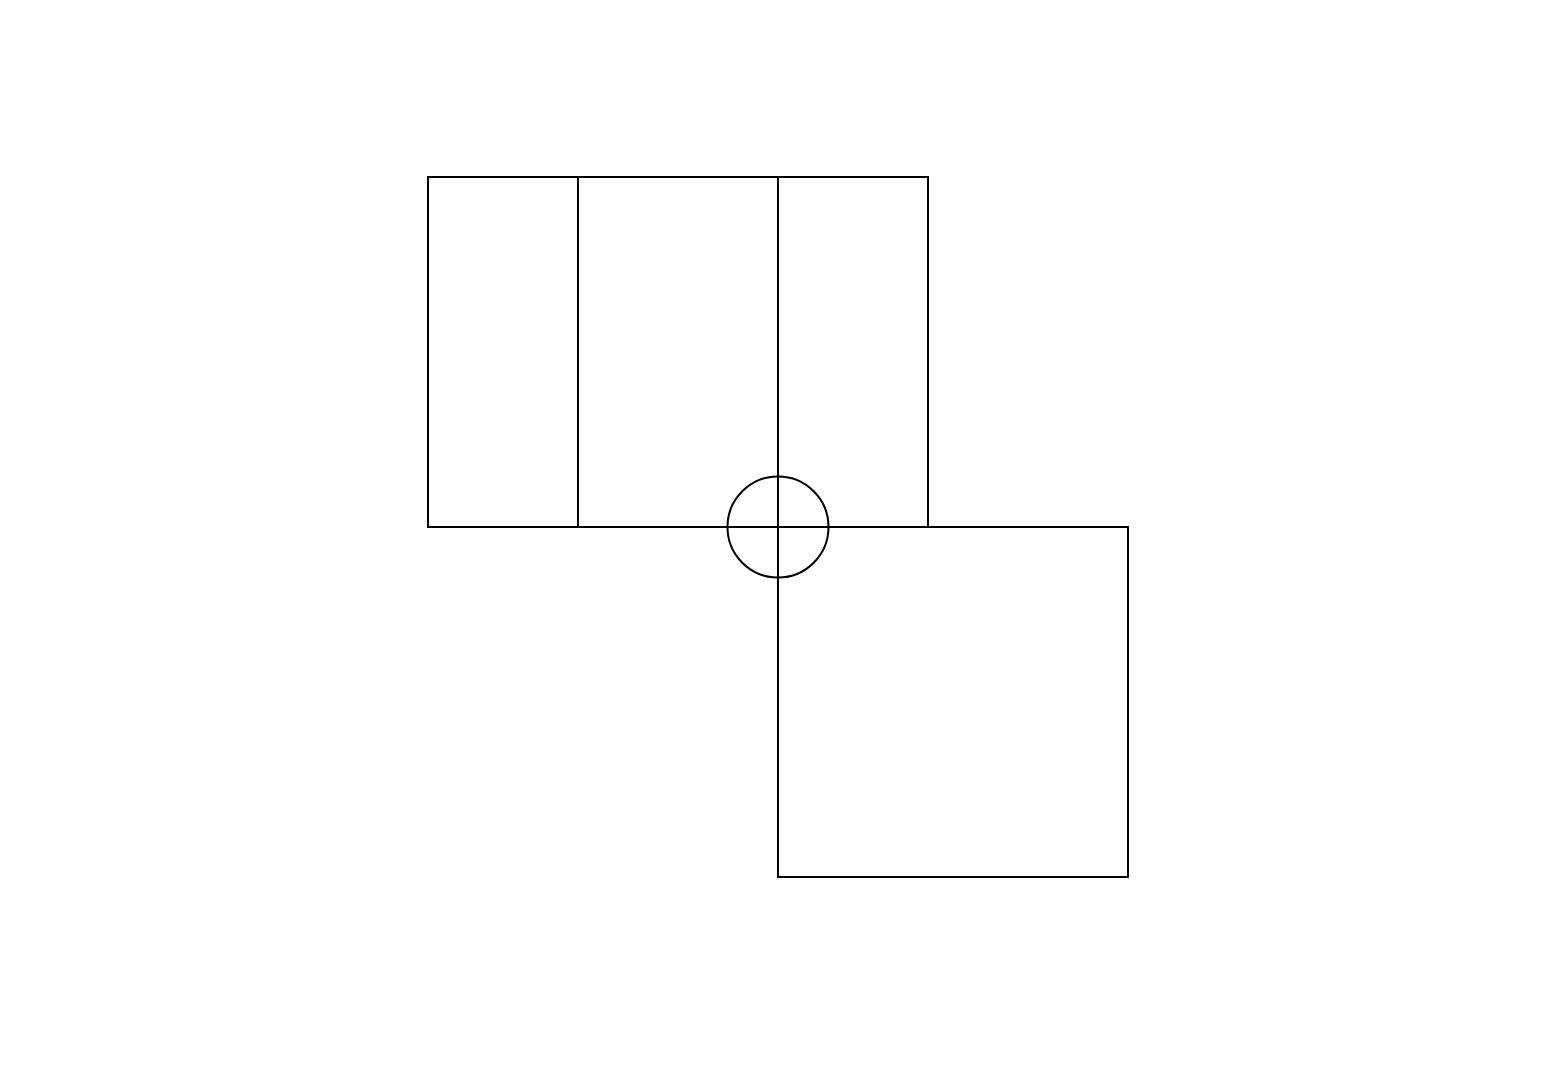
void draw(SkCanvas* canvas) {
  SkPaint paint;
  paint.setAntiAlias(true);
  canvas->clear(0xffffffff);
  paint.setStroke(true);
  paint.setStrokeWidth(2);
  paint.setColor(0xff000000);
  canvas->drawCircle(778, 527, 50.5f, paint);
  canvas->drawRect(SkRect::MakeXYWH(778, 527, 350, 350), paint);
  canvas->drawRect(SkRect::MakeXYWH(578, 177, 350, 350), paint);
  canvas->drawRect(SkRect::MakeXYWH(428, 177, 350, 350), paint);
}
